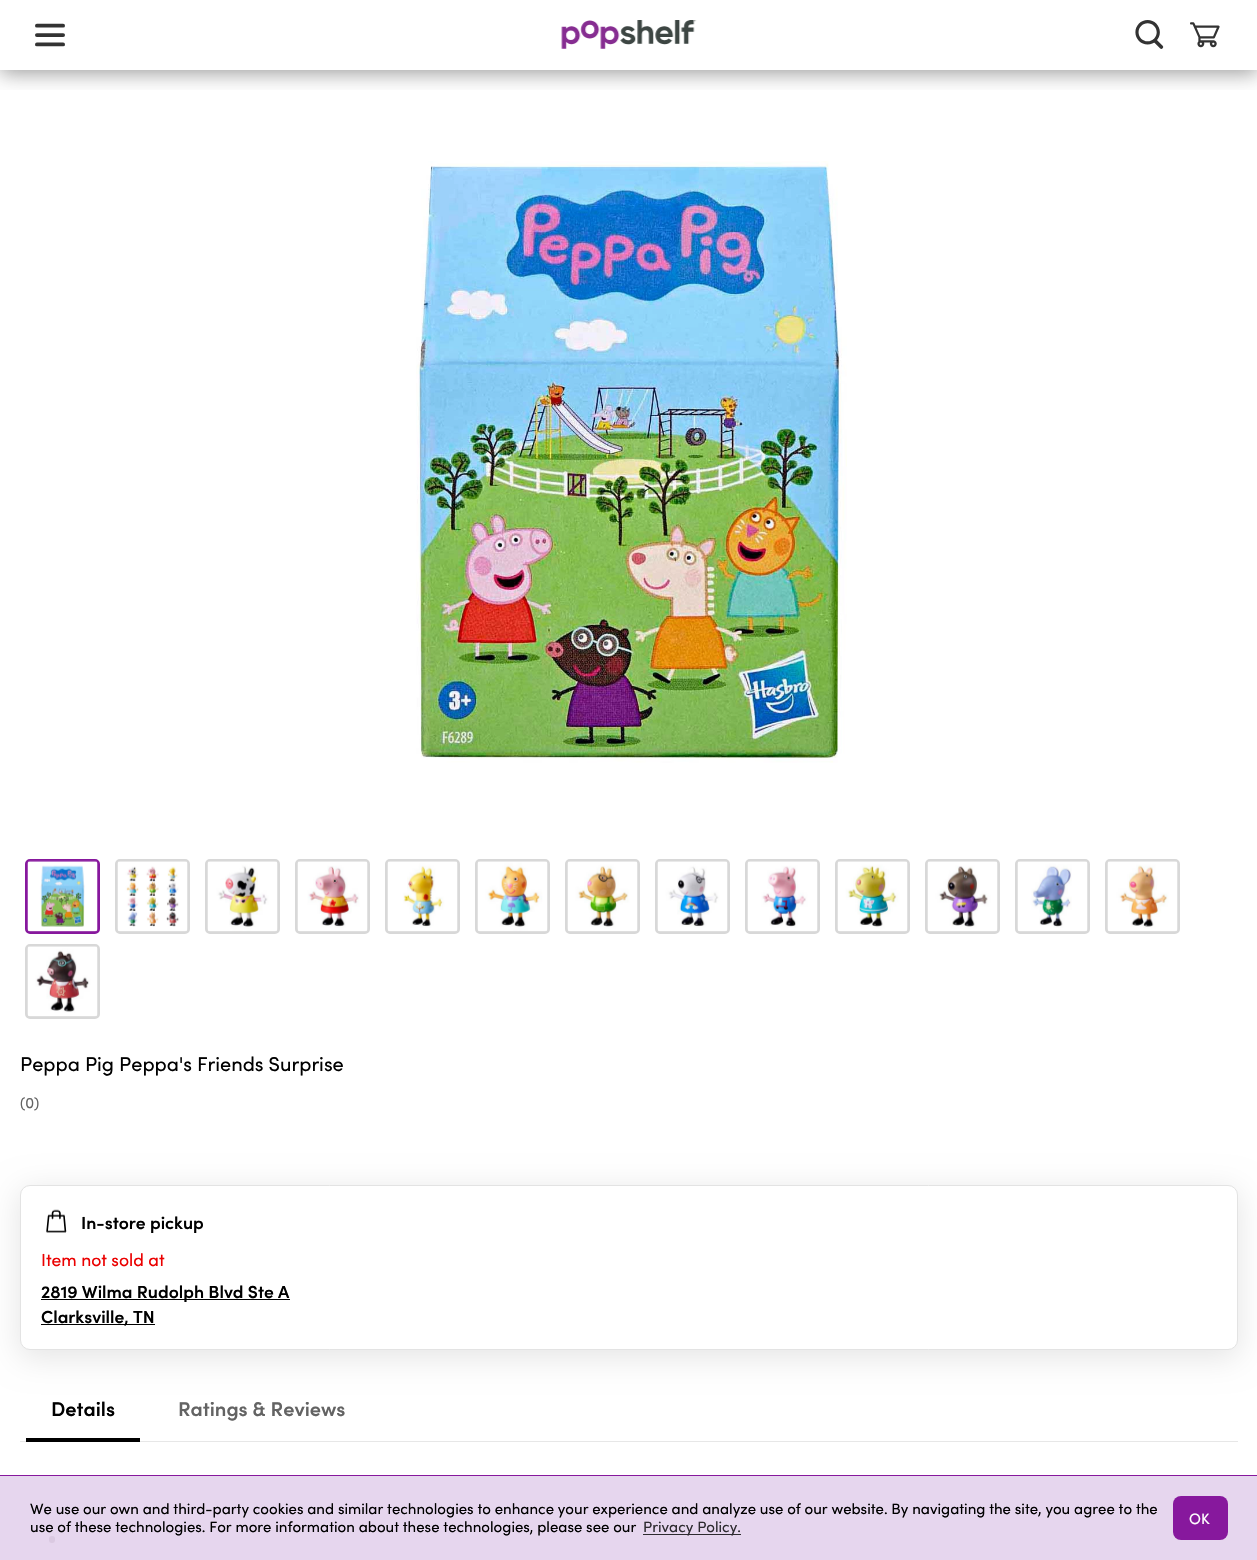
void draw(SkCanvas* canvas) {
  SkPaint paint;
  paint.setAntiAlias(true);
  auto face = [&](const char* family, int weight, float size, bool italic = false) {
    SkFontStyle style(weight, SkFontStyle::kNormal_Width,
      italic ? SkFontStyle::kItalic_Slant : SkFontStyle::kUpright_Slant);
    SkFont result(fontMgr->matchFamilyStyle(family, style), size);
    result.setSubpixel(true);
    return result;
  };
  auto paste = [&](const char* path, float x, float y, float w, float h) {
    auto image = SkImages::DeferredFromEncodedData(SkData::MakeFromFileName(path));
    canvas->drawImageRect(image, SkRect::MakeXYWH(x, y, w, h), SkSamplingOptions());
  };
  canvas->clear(0xffffffff);
  paint.setColor(0xffe6d6ee);
  canvas->drawRect(SkRect::MakeXYWH(0, 1476, 1257, 84), paint);
  canvas->save();
  canvas->clipRect(SkRect::MakeXYWH(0, 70, 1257, 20));
  paint.setColor(0x80323232);
  paint.setMaskFilter(SkMaskFilter::MakeBlur(kNormal_SkBlurStyle, 10));
  canvas->drawRect(SkRect::MakeXYWH(0, 3, 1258, 70), paint);
  paint.setMaskFilter(nullptr);
  canvas->restore();
  paste("img/1.png", 35, 23, 30, 24);
  paste("img/2.png", 561, 20, 136, 29);
  paste("img/3.png", 1135, 20, 29, 29);
  paste("img/4.png", 1190, 22, 30, 26);
  paste("img/5.png", 416, 161, 431, 602);
  paint.setStroke(true);
  paint.setStrokeWidth(3);
  paint.setColor(0xff87189d);
  canvas->drawRoundRect(SkRect::MakeXYWH(26.5f, 860.5f, 72, 72), 3.5f, 3.5f, paint);
  paste("img/6.png", 27, 860, 71, 72);
  paint.setColor(0xffd8d8d8);
  canvas->drawRoundRect(SkRect::MakeXYWH(116.5f, 860.5f, 72, 72), 3.5f, 3.5f, paint);
  paste("img/7.png", 117, 861, 71, 71);
  canvas->drawRoundRect(SkRect::MakeXYWH(206.5f, 860.5f, 72, 72), 3.5f, 3.5f, paint);
  paste("img/8.png", 207, 861, 71, 71);
  canvas->drawRoundRect(SkRect::MakeXYWH(296.5f, 860.5f, 72, 72), 3.5f, 3.5f, paint);
  paste("img/9.png", 297, 861, 71, 71);
  canvas->drawRoundRect(SkRect::MakeXYWH(386.5f, 860.5f, 72, 72), 3.5f, 3.5f, paint);
  paste("img/10.png", 387, 861, 71, 71);
  canvas->drawRoundRect(SkRect::MakeXYWH(476.5f, 860.5f, 72, 72), 3.5f, 3.5f, paint);
  paste("img/11.png", 477, 861, 71, 71);
  canvas->drawRoundRect(SkRect::MakeXYWH(566.5f, 860.5f, 72, 72), 3.5f, 3.5f, paint);
  paste("img/12.png", 567, 861, 71, 71);
  canvas->drawRoundRect(SkRect::MakeXYWH(656.5f, 860.5f, 72, 72), 3.5f, 3.5f, paint);
  paste("img/13.png", 657, 861, 71, 71);
  canvas->drawRoundRect(SkRect::MakeXYWH(746.5f, 860.5f, 72, 72), 3.5f, 3.5f, paint);
  paste("img/14.png", 747, 861, 71, 71);
  canvas->drawRoundRect(SkRect::MakeXYWH(836.5f, 860.5f, 72, 72), 3.5f, 3.5f, paint);
  paste("img/15.png", 837, 861, 71, 71);
  canvas->drawRoundRect(SkRect::MakeXYWH(926.5f, 860.5f, 72, 72), 3.5f, 3.5f, paint);
  paste("img/16.png", 927, 861, 71, 71);
  canvas->drawRoundRect(SkRect::MakeXYWH(1016.5f, 860.5f, 72, 72), 3.5f, 3.5f, paint);
  paste("img/17.png", 1017, 861, 71, 71);
  canvas->drawRoundRect(SkRect::MakeXYWH(1106.5f, 860.5f, 72, 72), 3.5f, 3.5f, paint);
  paste("img/18.png", 1107, 861, 71, 71);
  canvas->drawRoundRect(SkRect::MakeXYWH(26.5f, 945.5f, 72, 72), 3.5f, 3.5f, paint);
  paste("img/19.png", 27, 946, 71, 71);
  paint.setStroke(false);
  paint.setColor(0x1a000000);
  paint.setMaskFilter(SkMaskFilter::MakeBlur(kNormal_SkBlurStyle, 15.5f));
  canvas->drawRoundRect(SkRect::MakeXYWH(19, 1190, 1220, 168), 11, 11, paint);
  paint.setMaskFilter(nullptr);
  paint.setColor(0xffffffff);
  canvas->drawRoundRect(SkRect::MakeXYWH(20.5f, 1185.5f, 1217, 164), 9.5f, 9.5f, paint);
  paint.setStroke(true);
  paint.setStrokeWidth(1);
  paint.setColor(0xffe3e3e3);
  canvas->drawRoundRect(SkRect::MakeXYWH(20.5f, 1185.5f, 1217, 164), 9.5f, 9.5f, paint);
  paste("img/20.png", 46, 1209, 21, 24);
  paint.setStroke(false);
  {
    const struct { float x, y, w, h; SkColor color; } items[] = {
      {41, 1299, 249, 1, 0xff000000},
      {41, 1324, 114, 1, 0xff000000},
      {20, 1441, 1218, 1, 0xffe7e7e7},
      {26, 1438, 114, 4, 0xff000000},
    };
    for (auto [x, y, w, h, color] : items) {
      paint.setColor(color);
      canvas->drawRect(SkRect::MakeXYWH(x, y, w, h), paint);
    }
  }
  paint.setColor(0xffdac9e1);
  canvas->drawRoundRect(SkRect::MakeXYWH(49, 1536, 6, 7), 3, 3, paint);
  paint.setColor(0xff87189d);
  canvas->drawRect(SkRect::MakeXYWH(0, 1475, 1257, 1), paint);
  paint.setColor(0xff2e2b30);
  canvas->drawRect(SkRect::MakeXYWH(643, 1534, 98, 1), paint);
  paint.setColor(0xff87189d);
  canvas->drawRoundRect(SkRect::MakeXYWH(1173, 1496, 55, 44), 8, 8, paint);
  auto f0 = face("Sofia", 400, 20);
  paint.setColor(0xff000000);
  canvas->drawString("Peppa Pig Peppa's Friends Surprise", 20, 1071, f0, paint);
  auto f1 = face("Sofia", 400, 15);
  paint.setColor(0xff636363);
  canvas->drawString("(0)", 20, 1108, f1, paint);
  auto f2 = face("Sofia", 600, 17.5f);
  paint.setColor(0xff000000);
  canvas->drawString("In-store pickup", 81, 1229, f2, paint);
  auto f3 = face("Sofia", 400, 17.5f);
  paint.setColor(0xffeb0000);
  canvas->drawString("Item not sold at", 41, 1266, f3, paint);
  paint.setColor(0xff000000);
  canvas->drawString("2819 Wilma Rudolph Blvd Ste A", 41, 1298, f2, paint);
  canvas->drawString("Clarksville, TN", 41, 1323, f2, paint);
  auto f4 = face("Sofia", 600, 20);
  canvas->drawString("Details", 51, 1416, f4, paint);
  paint.setColor(0xff636363);
  canvas->drawString("Ratings & Reviews", 178, 1416, f4, paint);
  paint.setColor(0xff000000);
  canvas->drawString("We use our own and third-party cookies and similar technologies to enhance your experience and analyze use of our website. By navigating the site, you agree to the", 30, 1514, f1, paint);
  canvas->drawString("use of these technologies. For more information about these technologies, please see our", 30, 1532, f1, paint);
  paint.setColor(0xff2e2b30);
  canvas->drawString("Privacy Policy.", 643, 1532, f1, paint);
  paint.setColor(0xffffffff);
  canvas->drawString("OK", 1189, 1524, f1, paint);
}
